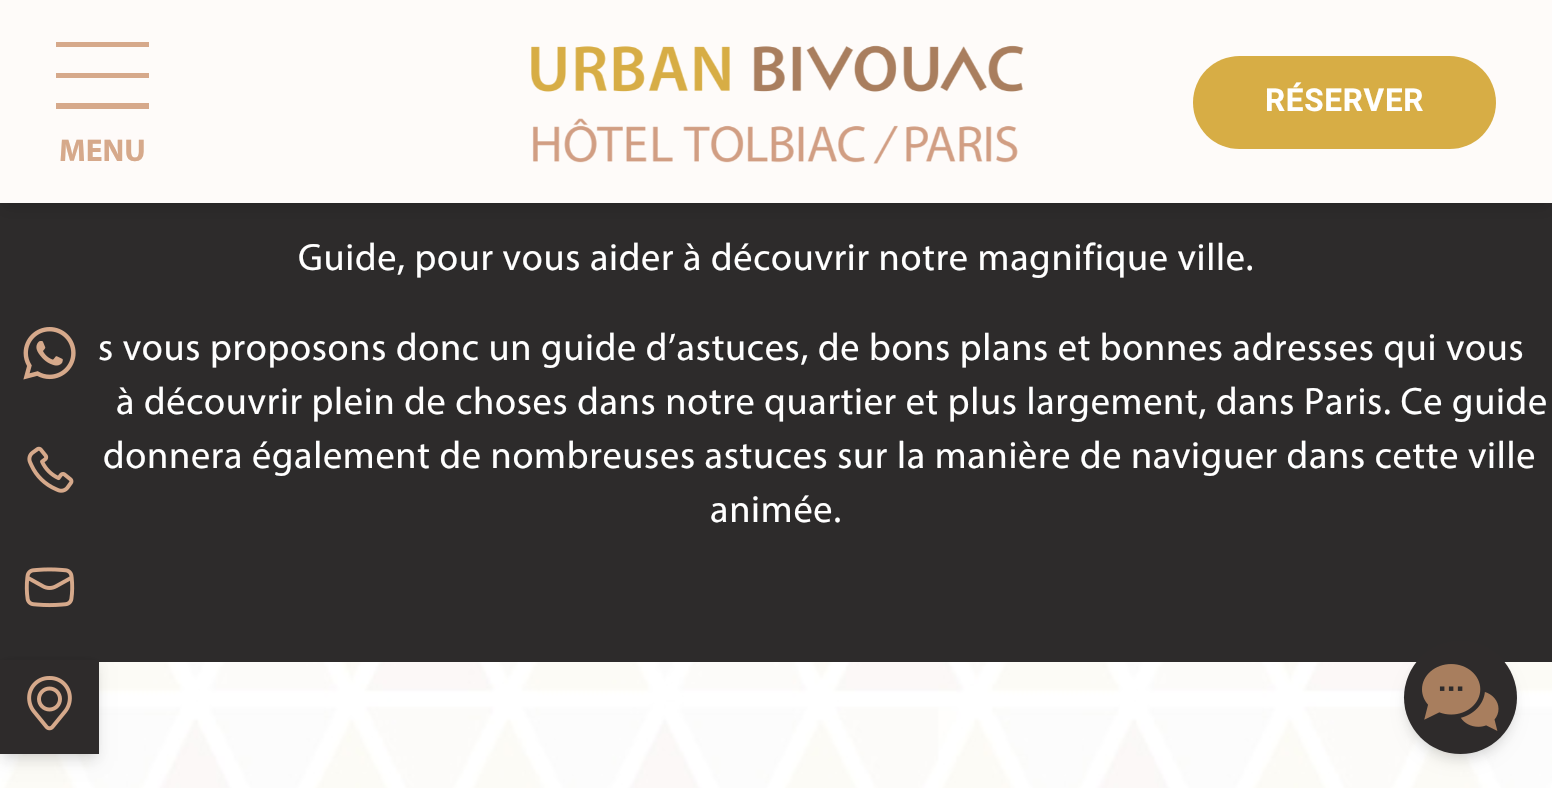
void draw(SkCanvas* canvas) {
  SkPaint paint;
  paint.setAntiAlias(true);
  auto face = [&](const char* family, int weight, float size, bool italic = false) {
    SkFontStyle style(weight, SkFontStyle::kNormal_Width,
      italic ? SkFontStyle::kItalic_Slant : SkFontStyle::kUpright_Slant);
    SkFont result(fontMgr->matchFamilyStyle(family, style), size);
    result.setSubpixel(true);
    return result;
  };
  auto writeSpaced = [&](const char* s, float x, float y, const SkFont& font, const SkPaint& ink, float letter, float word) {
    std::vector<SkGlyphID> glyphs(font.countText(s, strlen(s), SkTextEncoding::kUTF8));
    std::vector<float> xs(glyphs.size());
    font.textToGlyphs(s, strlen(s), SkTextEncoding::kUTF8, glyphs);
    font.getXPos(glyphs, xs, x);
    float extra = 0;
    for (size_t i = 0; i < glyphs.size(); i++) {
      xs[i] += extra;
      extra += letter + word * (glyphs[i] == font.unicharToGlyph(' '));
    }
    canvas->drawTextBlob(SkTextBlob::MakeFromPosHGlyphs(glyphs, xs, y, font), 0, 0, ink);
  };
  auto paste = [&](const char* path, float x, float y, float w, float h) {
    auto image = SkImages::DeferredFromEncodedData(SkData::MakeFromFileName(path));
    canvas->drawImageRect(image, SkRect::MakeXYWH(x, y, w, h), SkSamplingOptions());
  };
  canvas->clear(0xffffffff);
  paste("img/1.png", 0, 662, 1552, 126);
  paint.setColor(0xff2d2b2b);
  canvas->drawRect(SkRect::MakeXYWH(0, 203, 1552, 459), paint);
  paint.setColor(0x1a000000);
  paint.setMaskFilter(SkMaskFilter::MakeBlur(kNormal_SkBlurStyle, 4.5f));
  canvas->drawRect(SkRect::MakeXYWH(5, 9, 1543, 194), paint);
  paint.setMaskFilter(nullptr);
  paint.setMaskFilter(SkMaskFilter::MakeBlur(kNormal_SkBlurStyle, 7));
  canvas->drawRect(SkRect::MakeXYWH(2, 11, 1548, 198), paint);
  paint.setMaskFilter(nullptr);
  paint.setColor(0xfffefbf9);
  canvas->drawRect(SkRect::MakeXYWH(0, 0, 1552, 203), paint);
  paste("img/2.png", 531, 45, 493, 119);
  paint.setColor(0xffd7ad45);
  canvas->drawRoundRect(SkRect::MakeXYWH(1193, 56, 303, 93), 46.5f, 46.5f, paint);
  {
    const struct { float x, y, w, h; SkColor color; } items[] = {
      {56, 42, 93, 5, 0xffd6a98b},
      {56, 73, 93, 5, 0xffd6a98b},
      {56, 103, 93, 6, 0xffd6a98b},
    };
    for (auto [x, y, w, h, color] : items) {
      paint.setColor(color);
      canvas->drawRect(SkRect::MakeXYWH(x, y, w, h), paint);
    }
  }
  paste("img/3.png", 23, 327, 53, 53);
  paste("img/4.png", 27, 446, 47, 47);
  paste("img/5.png", 24, 567, 51, 41);
  paint.setColor(0x1a000000);
  paint.setMaskFilter(SkMaskFilter::MakeBlur(kNormal_SkBlurStyle, 4.5f));
  canvas->drawRect(SkRect::MakeXYWH(5, 664, 90, 90), paint);
  paint.setMaskFilter(nullptr);
  paint.setMaskFilter(SkMaskFilter::MakeBlur(kNormal_SkBlurStyle, 7));
  canvas->drawRect(SkRect::MakeXYWH(2, 666, 95, 95), paint);
  paint.setMaskFilter(nullptr);
  paint.setColor(0xff2e2b2b);
  canvas->drawRect(SkRect::MakeXYWH(0, 660, 99, 94), paint);
  paste("img/6.png", 27, 676, 45, 55);
  paint.setColor(0x1a000000);
  paint.setMaskFilter(SkMaskFilter::MakeBlur(kNormal_SkBlurStyle, 4.5f));
  canvas->drawRoundRect(SkRect::MakeXYWH(1409, 650, 103, 104), 51.5f, 51.5f, paint);
  paint.setMaskFilter(nullptr);
  paint.setMaskFilter(SkMaskFilter::MakeBlur(kNormal_SkBlurStyle, 7));
  canvas->drawRoundRect(SkRect::MakeXYWH(1406, 653, 108, 108), 54, 54, paint);
  paint.setMaskFilter(nullptr);
  paint.setColor(0xff2e2b2b);
  canvas->drawCircle(1460.5f, 697.5f, 56.5f, paint);
  paste("img/7.png", 1422, 664, 77, 67);
  auto f0 = face("Roboto", 700, 31.5f);
  paint.setColor(0xffffffff);
  writeSpaced("RÉSERVER", 1265, 111, f0, paint, 0.72f, 0);
  auto f1 = face("Myriad", 700, 31.5f);
  paint.setColor(0xffd6a98b);
  canvas->drawString("MENU", 59, 161, f1, paint);
  auto f2 = face("Myriad", 400, 38.25f);
  paint.setColor(0xffffffff);
  {
    const struct { const char* s; float x, y; } items[] = {
      {"Guide, pour vous aider à découvrir notre magnifique ville.", 298, 270},
      {"s vous proposons donc un guide d’astuces, de bons plans et bonnes adresses qui vous", 98, 360},
      {"à découvrir plein de choses dans notre quartier et plus largement, dans Paris. Ce guide", 116, 414},
      {"donnera également de nombreuses astuces sur la manière de naviguer dans cette ville", 103, 468},
      {"animée.", 710, 522},
    };
    for (auto [s, x, y] : items) {
      writeSpaced(s, x, y, f2, paint, 0.72f, 0);
    }
  }
}
